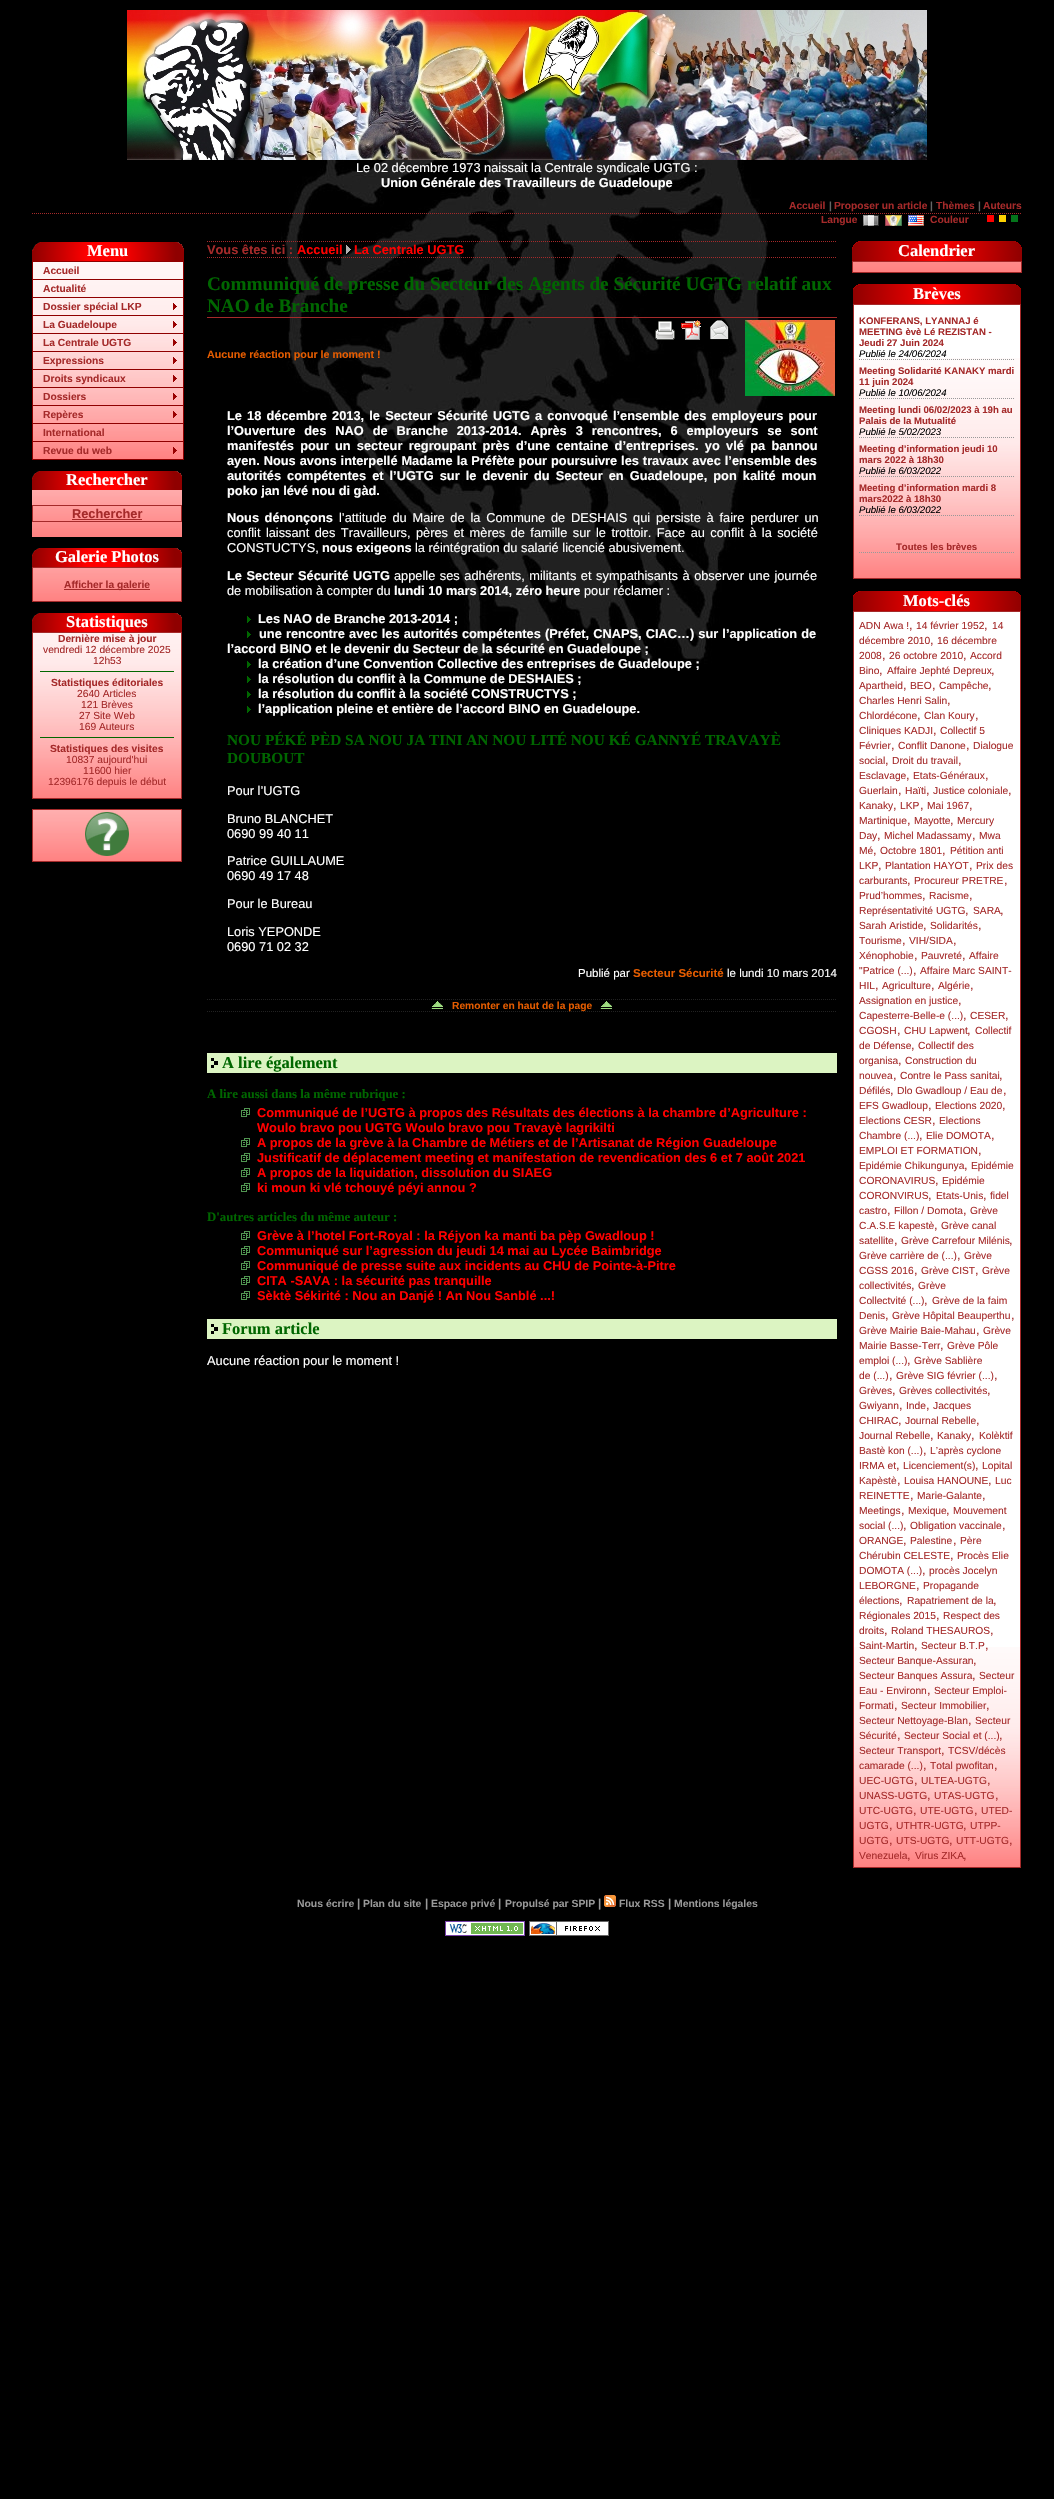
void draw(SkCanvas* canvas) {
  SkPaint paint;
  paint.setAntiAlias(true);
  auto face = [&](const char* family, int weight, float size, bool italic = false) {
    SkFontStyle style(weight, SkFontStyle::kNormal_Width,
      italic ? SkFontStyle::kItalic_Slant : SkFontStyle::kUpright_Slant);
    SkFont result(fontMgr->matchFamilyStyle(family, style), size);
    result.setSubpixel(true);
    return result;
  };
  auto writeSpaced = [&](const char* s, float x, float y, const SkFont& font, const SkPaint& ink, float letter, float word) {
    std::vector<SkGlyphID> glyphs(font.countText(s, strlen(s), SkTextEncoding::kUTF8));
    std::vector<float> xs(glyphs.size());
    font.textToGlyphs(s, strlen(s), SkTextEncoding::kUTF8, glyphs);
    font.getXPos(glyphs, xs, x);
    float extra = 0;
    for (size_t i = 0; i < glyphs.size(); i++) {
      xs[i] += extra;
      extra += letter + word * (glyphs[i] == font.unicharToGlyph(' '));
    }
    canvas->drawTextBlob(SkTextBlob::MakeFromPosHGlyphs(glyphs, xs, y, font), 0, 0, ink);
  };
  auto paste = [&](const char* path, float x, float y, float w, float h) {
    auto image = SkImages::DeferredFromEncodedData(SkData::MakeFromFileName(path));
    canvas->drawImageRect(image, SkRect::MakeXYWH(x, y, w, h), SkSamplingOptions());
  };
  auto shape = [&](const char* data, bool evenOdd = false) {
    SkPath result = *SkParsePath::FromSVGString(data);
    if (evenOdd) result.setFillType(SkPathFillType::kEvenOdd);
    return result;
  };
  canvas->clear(0xff000000);
  paste("img/1.png", 281, 160, 487, 520);
  paste("img/2.png", 127, 10, 800, 150);
  paint.setStroke(true);
  paint.setStrokeWidth(1);
  paint.setColor(0xffa52a2a);
  paint.setPathEffect(SkDashPathEffect::Make({{1, 1}}, 0));
  canvas->drawPath(shape("M32 213.5H1022"), paint);
  paint.setPathEffect(nullptr);
  paste("img/3.png", 863, 215, 16, 11);
  paste("img/4.png", 885, 215, 17, 11);
  paste("img/5.png", 908, 215, 16, 11);
  paint.setStroke(false);
  {
    const struct { float x, y, w, h; SkColor color; } items[] = {
      {987, 215, 7, 7, 0xffff0000},
      {999, 215, 7, 7, 0xfffed201},
      {1011, 215, 7, 7, 0xff04751b},
    };
    for (auto [x, y, w, h, color] : items) {
      paint.setColor(color);
      canvas->drawRect(SkRect::MakeXYWH(x, y, w, h), paint);
    }
  }
  paste("img/6.png", 32, 241, 152, 20);
  paste("img/7.png", 33, 262, 150, 197);
  {
    const struct { float x, y, w, h; SkColor color; } items[] = {
      {32, 261, 152, 1, 0xff8f0000},
      {183, 261, 1, 199, 0xff8f0000},
      {32, 261, 1, 199, 0xff8f0000},
      {33, 279, 150, 1, 0xff8f0000},
      {33, 297, 150, 1, 0xff8f0000},
    };
    for (auto [x, y, w, h, color] : items) {
      paint.setColor(color);
      canvas->drawRect(SkRect::MakeXYWH(x, y, w, h), paint);
    }
  }
  paste("img/8.png", 173, 303, 4, 7);
  canvas->drawRect(SkRect::MakeXYWH(33, 315, 150, 1), paint);
  paste("img/9.png", 173, 321, 4, 7);
  canvas->drawRect(SkRect::MakeXYWH(33, 333, 150, 1), paint);
  paste("img/10.png", 173, 339, 4, 7);
  canvas->drawRect(SkRect::MakeXYWH(33, 351, 150, 1), paint);
  paste("img/11.png", 173, 357, 4, 7);
  canvas->drawRect(SkRect::MakeXYWH(33, 369, 150, 1), paint);
  paste("img/12.png", 173, 375, 4, 7);
  canvas->drawRect(SkRect::MakeXYWH(33, 387, 150, 1), paint);
  paste("img/13.png", 173, 393, 4, 7);
  canvas->drawRect(SkRect::MakeXYWH(33, 405, 150, 1), paint);
  paste("img/14.png", 173, 411, 4, 7);
  canvas->drawRect(SkRect::MakeXYWH(33, 423, 150, 1), paint);
  canvas->drawRect(SkRect::MakeXYWH(33, 441, 150, 1), paint);
  paste("img/15.png", 173, 447, 4, 7);
  canvas->drawRect(SkRect::MakeXYWH(33, 459, 150, 1), paint);
  paste("img/16.png", 32, 490, 150, 47);
  paste("img/17.png", 32, 470, 150, 20);
  paint.setStroke(true);
  paint.setColor(0xffa52a2a);
  canvas->drawRect(SkRect::MakeXYWH(32.5f, 505.5f, 149, 16), paint);
  paint.setStroke(false);
  canvas->drawRect(SkRect::MakeXYWH(72, 519, 70, 1), paint);
  paste("img/18.png", 33, 568, 148, 33);
  paste("img/17.png", 32, 547, 150, 20);
  paint.setStroke(true);
  canvas->drawRect(SkRect::MakeXYWH(32.5f, 567.5f, 149, 34), paint);
  paint.setStroke(false);
  canvas->drawRect(SkRect::MakeXYWH(64, 589, 86, 1), paint);
  paste("img/19.png", 33, 633, 148, 165);
  paste("img/17.png", 32, 612, 150, 20);
  paint.setStroke(true);
  canvas->drawRect(SkRect::MakeXYWH(32.5f, 632.5f, 149, 166), paint);
  paint.setStroke(false);
  paint.setColor(0xff026700);
  canvas->drawRect(SkRect::MakeXYWH(40, 671, 134, 1), paint);
  canvas->drawRect(SkRect::MakeXYWH(40, 737, 134, 1), paint);
  paste("img/20.png", 33, 810, 148, 51);
  paint.setStroke(true);
  paint.setColor(0xffa52a2a);
  canvas->drawRect(SkRect::MakeXYWH(32.5f, 809.5f, 149, 52), paint);
  paste("img/21.png", 85, 812, 44, 44);
  paint.setPathEffect(SkDashPathEffect::Make({{1, 1}}, 0));
  canvas->drawPath(shape("M207 241.5H837"), paint);
  paint.setPathEffect(nullptr);
  paint.setPathEffect(SkDashPathEffect::Make({{1, 1}}, 0));
  canvas->drawPath(shape("M207 257.5H837"), paint);
  paint.setPathEffect(nullptr);
  paste("img/22.png", 346, 245, 5, 9);
  paint.setStroke(false);
  canvas->drawRect(SkRect::MakeXYWH(207, 317, 630, 1), paint);
  paste("img/23.png", 655, 321, 20, 19);
  paste("img/24.png", 681, 320, 20, 20);
  paste("img/25.png", 710, 320, 19, 20);
  paste("img/26.png", 745, 320, 90, 76);
  paste("img/27.png", 247, 616, 4, 7);
  paste("img/27.png", 247, 631, 4, 7);
  paste("img/27.png", 247, 661, 4, 7);
  paste("img/27.png", 247, 676, 4, 7);
  paste("img/27.png", 247, 691, 4, 7);
  paste("img/27.png", 247, 706, 4, 7);
  paint.setStroke(true);
  paint.setColor(0xff222222);
  paint.setPathEffect(SkDashPathEffect::Make({{1, 1}}, 0));
  canvas->drawPath(shape("M207 999.5H837"), paint);
  paint.setPathEffect(nullptr);
  paint.setPathEffect(SkDashPathEffect::Make({{1, 1}}, 0));
  canvas->drawPath(shape("M207 1011.5H837"), paint);
  paint.setPathEffect(nullptr);
  paste("img/28.png", 431, 1001, 12, 8);
  paste("img/28.png", 600, 1001, 12, 8);
  paint.setStroke(false);
  paint.setColor(0xffdcf4c2);
  canvas->drawRect(SkRect::MakeXYWH(207, 1053, 630, 20), paint);
  paste("img/29.png", 211, 1058, 7, 10);
  paste("img/30.png", 241, 1108, 9, 9);
  paste("img/30.png", 241, 1138, 9, 9);
  paste("img/30.png", 241, 1153, 9, 9);
  paste("img/30.png", 241, 1168, 9, 9);
  paste("img/30.png", 241, 1183, 9, 9);
  paste("img/30.png", 241, 1231, 9, 9);
  paste("img/30.png", 241, 1246, 9, 9);
  paste("img/30.png", 241, 1261, 9, 9);
  paste("img/30.png", 241, 1276, 9, 9);
  paste("img/30.png", 241, 1291, 9, 9);
  canvas->drawRect(SkRect::MakeXYWH(207, 1319, 630, 20), paint);
  paste("img/29.png", 211, 1324, 7, 10);
  paste("img/31.png", 852, 241, 170, 20);
  paste("img/32.png", 853, 262, 168, 10);
  paint.setStroke(true);
  paint.setColor(0xffa52a2a);
  canvas->drawRect(SkRect::MakeXYWH(852.5f, 261.5f, 169, 11), paint);
  paint.setStroke(false);
  paint.setColor(0xffffffff);
  canvas->drawRect(SkRect::MakeXYWH(854, 305, 166, 53), paint);
  paste("img/33.png", 854, 358, 166, 220);
  paste("img/34.png", 853, 284, 168, 20);
  paint.setStroke(true);
  paint.setColor(0xffa52a2a);
  canvas->drawRect(SkRect::MakeXYWH(853.5f, 304.5f, 167, 274), paint);
  paint.setColor(0xff999999);
  paint.setPathEffect(SkDashPathEffect::Make({{1, 1}}, 0));
  canvas->drawPath(shape("M859 359.5H1015"), paint);
  paint.setPathEffect(nullptr);
  paint.setPathEffect(SkDashPathEffect::Make({{1, 1}}, 0));
  canvas->drawPath(shape("M859 398.5H1015"), paint);
  paint.setPathEffect(nullptr);
  paint.setPathEffect(SkDashPathEffect::Make({{1, 1}}, 0));
  canvas->drawPath(shape("M859 437.5H1015"), paint);
  paint.setPathEffect(nullptr);
  paint.setPathEffect(SkDashPathEffect::Make({{1, 1}}, 0));
  canvas->drawPath(shape("M859 476.5H1015"), paint);
  paint.setPathEffect(nullptr);
  paint.setPathEffect(SkDashPathEffect::Make({{1, 1}}, 0));
  canvas->drawPath(shape("M859 515.5H1015"), paint);
  paint.setPathEffect(nullptr);
  paint.setPathEffect(SkDashPathEffect::Make({{1, 1}}, 0));
  canvas->drawPath(shape("M859 552.5H1015"), paint);
  paint.setPathEffect(nullptr);
  paint.setStroke(false);
  paint.setColor(0xffffffff);
  canvas->drawRect(SkRect::MakeXYWH(854, 612, 166, 1035), paint);
  paste("img/33.png", 854, 1647, 166, 220);
  paste("img/34.png", 853, 591, 168, 20);
  paint.setStroke(true);
  paint.setColor(0xffa52a2a);
  canvas->drawRect(SkRect::MakeXYWH(853.5f, 611.5f, 167, 1256), paint);
  paste("img/35.png", 604, 1895, 12, 12);
  paste("img/36.png", 445, 1921, 80, 15);
  paste("img/37.png", 529, 1921, 80, 15);
  auto f0 = face("Liberation Sans", 400, 12.8f);
  paint.setStroke(false);
  paint.setColor(0xffffffff);
  canvas->drawString("Le 02 décembre 1973 naissait la Centrale syndicale UGTG :", 356, 172, f0, paint);
  auto f1 = face("Liberation Sans", 700, 12.8f);
  canvas->drawString("Union Générale des Travailleurs de Guadeloupe", 381, 187, f1, paint);
  auto f2 = face("Liberation Sans", 700, 10.25f);
  paint.setColor(0xffa52a2a);
  canvas->drawString("Accueil", 789, 209, f2, paint);
  paint.setColor(0xff666666);
  canvas->drawString("|", 829, 209, f2, paint);
  paint.setColor(0xffa52a2a);
  canvas->drawString("Proposer un article", 834, 209, f2, paint);
  paint.setColor(0xff666666);
  canvas->drawString("|", 930, 209, f2, paint);
  paint.setColor(0xffa52a2a);
  canvas->drawString("Thèmes", 936, 209, f2, paint);
  paint.setColor(0xff666666);
  canvas->drawString("|", 978, 209, f2, paint);
  paint.setColor(0xffa52a2a);
  {
    const struct { const char* s; float x, y; } items[] = {
      {"Auteurs", 983, 209},
      {"Langue", 821, 223},
      {"Couleur", 930, 223},
    };
    for (auto [s, x, y] : items) {
      canvas->drawString(s, x, y, f2, paint);
    }
  }
  auto f3 = face("Liberation Serif", 700, 16.5f);
  paint.setColor(0xffffffff);
  canvas->drawString("Menu", 87, 256, f3, paint);
  paint.setColor(0xffa52a2a);
  {
    const struct { const char* s; float x, y; } items[] = {
      {"Accueil", 43, 274},
      {"Actualité", 43, 292},
      {"Dossier spécial LKP", 43, 310},
      {"La Guadeloupe", 43, 328},
      {"La Centrale UGTG", 43, 346},
      {"Expressions", 43, 364},
      {"Droits syndicaux", 43, 382},
      {"Dossiers", 43, 400},
      {"Repères", 43, 418},
      {"International", 43, 436},
      {"Revue du web", 43, 454},
    };
    for (auto [s, x, y] : items) {
      canvas->drawString(s, x, y, f2, paint);
    }
  }
  paint.setColor(0xffffffff);
  canvas->drawString("Rechercher", 66, 485, f3, paint);
  paint.setColor(0xffa52a2a);
  canvas->drawString("Rechercher", 72, 518, f1, paint);
  paint.setColor(0xffffffff);
  canvas->drawString("Galerie Photos", 55, 562, f3, paint);
  paint.setColor(0xffa52a2a);
  canvas->drawString("Afficher la galerie", 64, 588, f2, paint);
  paint.setColor(0xffffffff);
  canvas->drawString("Statistiques", 66, 627, f3, paint);
  paint.setColor(0xffa52a2a);
  canvas->drawString("Dernière mise à jour", 58, 642, f2, paint);
  auto f4 = face("Liberation Sans", 400, 10.25f);
  canvas->drawString("vendredi 12 décembre 2025", 43, 653, f4, paint);
  canvas->drawString("12h53", 93, 664, f4, paint);
  canvas->drawString("Statistiques éditoriales", 51, 686, f2, paint);
  {
    const struct { const char* s; float x, y; } items[] = {
      {"2640 Articles", 77, 697},
      {"121 Brèves", 81, 708},
      {"27 Site Web", 79, 719},
      {"169 Auteurs", 79, 730},
    };
    for (auto [s, x, y] : items) {
      canvas->drawString(s, x, y, f4, paint);
    }
  }
  canvas->drawString("Statistiques des visites", 50, 752, f2, paint);
  {
    const struct { const char* s; float x, y; } items[] = {
      {"10837 aujourd'hui", 66, 763},
      {"11600 hier", 83, 774},
      {"12396176 depuis le début", 48, 785},
    };
    for (auto [s, x, y] : items) {
      canvas->drawString(s, x, y, f4, paint);
    }
  }
  canvas->drawString("Vous êtes ici :", 207, 254, f1, paint);
  paint.setColor(0xffff0000);
  canvas->drawString("Accueil", 297, 254, f1, paint);
  canvas->drawString("La Centrale UGTG", 354, 254, f1, paint);
  auto f5 = face("Liberation Serif", 700, 19.2f);
  paint.setColor(0xff006600);
  canvas->drawString("Communiqué de presse du Secteur des Agents de Sécurité UGTG relatif aux", 207, 290, f5, paint);
  canvas->drawString("NAO de Branche", 207, 312, f5, paint);
  auto f6 = face("Liberation Sans", 700, 10.7f);
  paint.setColor(0xffe55c00);
  canvas->drawString("Aucune réaction pour le moment !", 207, 358, f6, paint);
  paint.setColor(0xffffffff);
  writeSpaced("Le 18 décembre 2013, le Secteur Sécurité UGTG a convoqué l’ensemble des employeurs pour", 227, 420, f1, paint, 0, 1.6f);
  writeSpaced("l’Ouverture des NAO de Branche 2013-2014. Après 3 rencontres, 6 employeurs se sont", 227, 435, f1, paint, 0, 5.4f);
  writeSpaced("manifestés pour un secteur regroupant près d’une centaine d’entreprises. yo vlé pa bannou", 227, 450, f1, paint, 0, 2.75f);
  writeSpaced("ayen. Nous avons interpellé Madame la Préfète pour poursuivre les travaux avec l’ensemble des", 227, 465, f1, paint, 0, 0.4f);
  writeSpaced("autorités compétentes et l’UGTG sur le devenir du Secteur en Guadeloupe, pon kalité moun", 227, 480, f1, paint, 0, 2.5f);
  canvas->drawString("poko jan lévé nou di gàd.", 227, 495, f1, paint);
  writeSpaced("Nous dénonçons", 227, 522, f1, paint, 0, 2);
  writeSpaced("l’attitude du Maire de la Commune de DESHAIS qui persiste à faire perdurer un", 339, 522, f0, paint, 0, 2.25f);
  writeSpaced("conflit laissant des Travailleurs, pères et mères de famille sur le trottoir. Face au conflit à la société", 227, 537, f0, paint, 0, 1.9f);
  canvas->drawString("CONSTUCTYS,", 227, 552, f0, paint);
  canvas->drawString("nous exigeons", 322, 552, f1, paint);
  canvas->drawString("la réintégration du salarié licencié abusivement.", 415, 552, f0, paint);
  writeSpaced("Le Secteur Sécurité UGTG", 227, 580, f1, paint, 0, 1);
  writeSpaced("appelle ses adhérents, militants et sympathisants à observer une journée", 394, 580, f0, paint, 0, 1);
  canvas->drawString("de mobilisation à compter du", 227, 595, f0, paint);
  canvas->drawString("lundi 10 mars 2014, zéro heure", 394, 595, f1, paint);
  canvas->drawString("pour réclamer :", 584, 595, f0, paint);
  canvas->drawString("Les NAO de Branche 2013-2014 ;", 258, 623, f1, paint);
  writeSpaced("une rencontre avec les autorités compétentes (Préfet, CNAPS, CIAC…) sur l’application de", 259, 638, f1, paint, 0, 0.6f);
  {
    const struct { const char* s; float x, y; } items[] = {
      {"l’accord BINO et le devenir du Secteur de la sécurité en Guadeloupe ;", 227, 653},
      {"la création d’une Convention Collective des entreprises de Guadeloupe ;", 258, 668},
      {"la résolution du conflit à la Commune de DESHAIES ;", 258, 683},
      {"la résolution du conflit à la société CONSTRUCTYS ;", 258, 698},
      {"l’application pleine et entière de l’accord BINO en Guadeloupe.", 258, 713},
    };
    for (auto [s, x, y] : items) {
      canvas->drawString(s, x, y, f1, paint);
    }
  }
  auto f7 = face("Liberation Serif", 700, 15.35f);
  paint.setColor(0xff006600);
  canvas->drawString("NOU PÉKÉ PÈD SA NOU JA TINI AN NOU LITÉ NOU KÉ GANNYÉ TRAVAYÈ", 227, 745, f7, paint);
  canvas->drawString("DOUBOUT", 227, 763, f7, paint);
  paint.setColor(0xffffffff);
  {
    const struct { const char* s; float x, y; } items[] = {
      {"Pour l’UGTG", 227, 795},
      {"Bruno BLANCHET", 227, 823},
      {"0690 99 40 11", 227, 838},
      {"Patrice GUILLAUME", 227, 865},
      {"0690 49 17 48", 227, 880},
      {"Pour le Bureau", 227, 908},
      {"Loris YEPONDE", 227, 936},
      {"0690 71 02 32", 227, 951},
    };
    for (auto [s, x, y] : items) {
      canvas->drawString(s, x, y, f0, paint);
    }
  }
  auto f8 = face("Liberation Sans", 400, 11.5f);
  canvas->drawString("Publié par", 578, 977, f8, paint);
  auto f9 = face("Liberation Sans", 700, 11.5f);
  paint.setColor(0xffe55c00);
  canvas->drawString("Secteur Sécurité", 633, 977, f9, paint);
  paint.setColor(0xffffffff);
  canvas->drawString("le lundi 10 mars 2014", 727, 977, f8, paint);
  paint.setColor(0xffe55c00);
  canvas->drawString("Remonter en haut de la page", 452, 1009, f2, paint);
  paint.setColor(0xff006600);
  canvas->drawString("A lire également", 222, 1068, f3, paint);
  auto f10 = face("Liberation Serif", 700, 12.8f);
  canvas->drawString("A lire aussi dans la même rubrique :", 207, 1098, f10, paint);
  paint.setColor(0xffff0000);
  {
    const struct { const char* s; float x, y; } items[] = {
      {"Communiqué de l’UGTG à propos des Résultats des élections à la chambre d’Agriculture :", 257, 1117},
      {"Woulo bravo pou UGTG Woulo bravo pou Travayè lagrikilti", 257, 1132},
      {"A propos de la grève à la Chambre de Métiers et de l’Artisanat de Région Guadeloupe", 257, 1147},
      {"Justificatif de déplacement meeting et manifestation de revendication des 6 et 7 août 2021", 257, 1162},
      {"A propos de la liquidation, dissolution du SIAEG", 257, 1177},
      {"ki moun ki vlé tchouyé péyi annou ?", 257, 1192},
    };
    for (auto [s, x, y] : items) {
      canvas->drawString(s, x, y, f1, paint);
    }
  }
  paint.setColor(0xff006600);
  canvas->drawString("D'autres articles du même auteur :", 207, 1221, f10, paint);
  paint.setColor(0xffff0000);
  {
    const struct { const char* s; float x, y; } items[] = {
      {"Grève à l’hotel Fort-Royal : la Réjyon ka manti ba pèp Gwadloup !", 257, 1240},
      {"Communiqué sur l’agression du jeudi 14 mai au Lycée Baimbridge", 257, 1255},
      {"Communiqué de presse suite aux incidents au CHU de Pointe-à-Pitre", 257, 1270},
      {"CITA -SAVA : la sécurité pas tranquille", 257, 1285},
      {"Sèktè Sékirité : Nou an Danjé ! An Nou Sanblé ...!", 257, 1300},
    };
    for (auto [s, x, y] : items) {
      canvas->drawString(s, x, y, f1, paint);
    }
  }
  paint.setColor(0xff006600);
  canvas->drawString("Forum article", 222, 1334, f3, paint);
  paint.setColor(0xffffffff);
  canvas->drawString("Aucune réaction pour le moment !", 207, 1365, f0, paint);
  canvas->drawString("Calendrier", 898, 256, f3, paint);
  canvas->drawString("Brèves", 913, 299, f3, paint);
  auto f11 = face("Liberation Sans", 700, 9.6f);
  paint.setColor(0xffa52a2a);
  {
    const struct { const char* s; float x, y; } items[] = {
      {"KONFERANS, LYANNAJ é", 859, 324},
      {"MEETING èvè Lé REZISTAN -", 859, 335},
      {"Jeudi 27 Juin 2024", 859, 346},
    };
    for (auto [s, x, y] : items) {
      canvas->drawString(s, x, y, f11, paint);
    }
  }
  auto f12 = face("Liberation Sans", 400, 9.6f, true);
  paint.setColor(0xff000000);
  canvas->drawString("Publié le 24/06/2024", 859, 357, f12, paint);
  paint.setColor(0xffa52a2a);
  canvas->drawString("Meeting Solidarité KANAKY mardi", 859, 374, f11, paint);
  canvas->drawString("11 juin 2024", 859, 385, f11, paint);
  paint.setColor(0xff000000);
  canvas->drawString("Publié le 10/06/2024", 859, 396, f12, paint);
  paint.setColor(0xffa52a2a);
  canvas->drawString("Meeting lundi 06/02/2023 à 19h au", 859, 413, f11, paint);
  canvas->drawString("Palais de la Mutualité", 859, 424, f11, paint);
  paint.setColor(0xff000000);
  canvas->drawString("Publié le 5/02/2023", 859, 435, f12, paint);
  paint.setColor(0xffa52a2a);
  canvas->drawString("Meeting d’information jeudi 10", 859, 452, f11, paint);
  canvas->drawString("mars 2022 à 18h30", 859, 463, f11, paint);
  paint.setColor(0xff000000);
  canvas->drawString("Publié le 6/03/2022", 859, 474, f12, paint);
  paint.setColor(0xffa52a2a);
  canvas->drawString("Meeting d’information mardi 8", 859, 491, f11, paint);
  canvas->drawString("mars2022 à 18h30", 859, 502, f11, paint);
  paint.setColor(0xff000000);
  canvas->drawString("Publié le 6/03/2022", 859, 513, f12, paint);
  paint.setColor(0xffa52a2a);
  canvas->drawString("Toutes les brèves", 896, 550, f11, paint);
  paint.setColor(0xffffffff);
  canvas->drawString("Mots-clés", 903, 606, f3, paint);
  paint.setColor(0xffa52a2a);
  canvas->drawString("ADN Awa !", 859, 629, f4, paint);
  canvas->drawString(",", 909, 629, f0, paint);
  canvas->drawString("14 février 1952", 916, 629, f4, paint);
  canvas->drawString(",", 984, 629, f0, paint);
  canvas->drawString("14", 992, 629, f4, paint);
  canvas->drawString("décembre 2010", 859, 644, f4, paint);
  canvas->drawString(",", 930, 644, f0, paint);
  canvas->drawString("16 décembre", 937, 644, f4, paint);
  canvas->drawString("2008", 859, 659, f4, paint);
  canvas->drawString(",", 882, 659, f0, paint);
  canvas->drawString("26 octobre 2010", 889, 659, f4, paint);
  canvas->drawString(",", 963, 659, f0, paint);
  canvas->drawString("Accord", 970, 659, f4, paint);
  canvas->drawString("Bino", 859, 674, f4, paint);
  canvas->drawString(",", 879, 674, f0, paint);
  canvas->drawString("Affaire Jephté Depreux", 887, 674, f4, paint);
  canvas->drawString(",", 991, 674, f0, paint);
  canvas->drawString("Apartheid", 859, 689, f4, paint);
  canvas->drawString(",", 903, 689, f0, paint);
  canvas->drawString("BEO", 910, 689, f4, paint);
  canvas->drawString(",", 932, 689, f0, paint);
  canvas->drawString("Campêche", 939, 689, f4, paint);
  canvas->drawString(",", 988, 689, f0, paint);
  canvas->drawString("Charles Henri Salin", 859, 704, f4, paint);
  canvas->drawString(",", 947, 704, f0, paint);
  canvas->drawString("Chlordécone", 859, 719, f4, paint);
  canvas->drawString(",", 917, 719, f0, paint);
  canvas->drawString("Clan Koury", 924, 719, f4, paint);
  canvas->drawString(",", 975, 719, f0, paint);
  canvas->drawString("Cliniques KADJI", 859, 734, f4, paint);
  canvas->drawString(",", 933, 734, f0, paint);
  canvas->drawString("Collectif 5", 940, 734, f4, paint);
  canvas->drawString("Février", 859, 749, f4, paint);
  canvas->drawString(",", 891, 749, f0, paint);
  canvas->drawString("Conflit Danone", 898, 749, f4, paint);
  canvas->drawString(",", 966, 749, f0, paint);
  canvas->drawString("Dialogue", 973, 749, f4, paint);
  canvas->drawString("social", 859, 764, f4, paint);
  canvas->drawString(",", 885, 764, f0, paint);
  canvas->drawString("Droit du travail", 892, 764, f4, paint);
  canvas->drawString(",", 958, 764, f0, paint);
  canvas->drawString("Esclavage", 859, 779, f4, paint);
  canvas->drawString(",", 906, 779, f0, paint);
  canvas->drawString("Etats-Généraux", 913, 779, f4, paint);
  canvas->drawString(",", 985, 779, f0, paint);
  canvas->drawString("Guerlain", 859, 794, f4, paint);
  canvas->drawString(",", 898, 794, f0, paint);
  canvas->drawString("Haïti", 905, 794, f4, paint);
  canvas->drawString(",", 926, 794, f0, paint);
  canvas->drawString("Justice coloniale", 933, 794, f4, paint);
  canvas->drawString(",", 1008, 794, f0, paint);
  canvas->drawString("Kanaky", 859, 809, f4, paint);
  canvas->drawString(",", 893, 809, f0, paint);
  canvas->drawString("LKP", 900, 809, f4, paint);
  canvas->drawString(",", 920, 809, f0, paint);
  canvas->drawString("Mai 1967", 927, 809, f4, paint);
  canvas->drawString(",", 969, 809, f0, paint);
  canvas->drawString("Martinique", 859, 824, f4, paint);
  canvas->drawString(",", 907, 824, f0, paint);
  canvas->drawString("Mayotte", 914, 824, f4, paint);
  canvas->drawString(",", 950, 824, f0, paint);
  canvas->drawString("Mercury", 957, 824, f4, paint);
  canvas->drawString("Day", 859, 839, f4, paint);
  canvas->drawString(",", 877, 839, f0, paint);
  canvas->drawString("Michel Madassamy", 884, 839, f4, paint);
  canvas->drawString(",", 972, 839, f0, paint);
  canvas->drawString("Mwa", 979, 839, f4, paint);
  canvas->drawString("Mé", 859, 854, f4, paint);
  canvas->drawString(",", 873, 854, f0, paint);
  canvas->drawString("Octobre 1801", 880, 854, f4, paint);
  canvas->drawString(",", 942, 854, f0, paint);
  canvas->drawString("Pétition anti", 950, 854, f4, paint);
  canvas->drawString("LKP", 859, 869, f4, paint);
  canvas->drawString(",", 878, 869, f0, paint);
  canvas->drawString("Plantation HAYOT", 885, 869, f4, paint);
  canvas->drawString(",", 969, 869, f0, paint);
  canvas->drawString("Prix des", 976, 869, f4, paint);
  canvas->drawString("carburants", 859, 884, f4, paint);
  canvas->drawString(",", 907, 884, f0, paint);
  canvas->drawString("Procureur PRETRE", 914, 884, f4, paint);
  canvas->drawString(",", 1004, 884, f0, paint);
  canvas->drawString("Prud’hommes", 859, 899, f4, paint);
  canvas->drawString(",", 922, 899, f0, paint);
  canvas->drawString("Racisme", 929, 899, f4, paint);
  canvas->drawString(",", 969, 899, f0, paint);
  canvas->drawString("Représentativité UGTG", 859, 914, f4, paint);
  canvas->drawString(",", 965, 914, f0, paint);
  canvas->drawString("SARA", 973, 914, f4, paint);
  canvas->drawString(",", 1000, 914, f0, paint);
  canvas->drawString("Sarah Aristide", 859, 929, f4, paint);
  canvas->drawString(",", 923, 929, f0, paint);
  canvas->drawString("Solidarités", 930, 929, f4, paint);
  canvas->drawString(",", 978, 929, f0, paint);
  canvas->drawString("Tourisme", 859, 944, f4, paint);
  canvas->drawString(",", 902, 944, f0, paint);
  canvas->drawString("VIH/SIDA", 909, 944, f4, paint);
  canvas->drawString(",", 953, 944, f0, paint);
  canvas->drawString("Xénophobie", 859, 959, f4, paint);
  canvas->drawString(",", 914, 959, f0, paint);
  canvas->drawString("Pauvreté", 921, 959, f4, paint);
  canvas->drawString(",", 962, 959, f0, paint);
  canvas->drawString("Affaire", 969, 959, f4, paint);
  canvas->drawString("\"Patrice (...)", 859, 974, f4, paint);
  canvas->drawString(",", 913, 974, f0, paint);
  canvas->drawString("Affaire Marc SAINT-", 920, 974, f4, paint);
  canvas->drawString("HIL", 859, 989, f4, paint);
  canvas->drawString(",", 875, 989, f0, paint);
  canvas->drawString("Agriculture", 882, 989, f4, paint);
  canvas->drawString(",", 931, 989, f0, paint);
  canvas->drawString("Algérie", 938, 989, f4, paint);
  canvas->drawString(",", 970, 989, f0, paint);
  canvas->drawString("Assignation en justice", 859, 1004, f4, paint);
  canvas->drawString(",", 958, 1004, f0, paint);
  canvas->drawString("Capesterre-Belle-e (...)", 859, 1019, f4, paint);
  canvas->drawString(",", 963, 1019, f0, paint);
  canvas->drawString("CESER", 970, 1019, f4, paint);
  canvas->drawString(",", 1005, 1019, f0, paint);
  canvas->drawString("CGOSH", 859, 1034, f4, paint);
  canvas->drawString(",", 897, 1034, f0, paint);
  canvas->drawString("CHU Lapwent", 904, 1034, f4, paint);
  canvas->drawString(",", 967, 1034, f0, paint);
  canvas->drawString("Collectif", 975, 1034, f4, paint);
  canvas->drawString("de Défense", 859, 1049, f4, paint);
  canvas->drawString(",", 911, 1049, f0, paint);
  canvas->drawString("Collectif des", 918, 1049, f4, paint);
  canvas->drawString("organisa", 859, 1064, f4, paint);
  canvas->drawString(",", 898, 1064, f0, paint);
  canvas->drawString("Construction du", 905, 1064, f4, paint);
  canvas->drawString("nouvea", 859, 1079, f4, paint);
  canvas->drawString(",", 893, 1079, f0, paint);
  canvas->drawString("Contre le Pass sanitai", 900, 1079, f4, paint);
  canvas->drawString(",", 999, 1079, f0, paint);
  canvas->drawString("Défilés", 859, 1094, f4, paint);
  canvas->drawString(",", 890, 1094, f0, paint);
  canvas->drawString("Dlo Gwadloup / Eau de", 897, 1094, f4, paint);
  canvas->drawString(",", 1003, 1094, f0, paint);
  canvas->drawString("EFS Gwadloup", 859, 1109, f4, paint);
  canvas->drawString(",", 928, 1109, f0, paint);
  canvas->drawString("Elections 2020", 935, 1109, f4, paint);
  canvas->drawString(",", 1002, 1109, f0, paint);
  canvas->drawString("Elections CESR", 859, 1124, f4, paint);
  canvas->drawString(",", 932, 1124, f0, paint);
  canvas->drawString("Elections", 939, 1124, f4, paint);
  canvas->drawString("Chambre (...)", 859, 1139, f4, paint);
  canvas->drawString(",", 919, 1139, f0, paint);
  canvas->drawString("Elie DOMOTA", 926, 1139, f4, paint);
  canvas->drawString(",", 991, 1139, f0, paint);
  canvas->drawString("EMPLOI ET FORMATION", 859, 1154, f4, paint);
  canvas->drawString(",", 978, 1154, f0, paint);
  canvas->drawString("Epidémie Chikungunya", 859, 1169, f4, paint);
  canvas->drawString(",", 964, 1169, f0, paint);
  canvas->drawString("Epidémie", 971, 1169, f4, paint);
  canvas->drawString("CORONAVIRUS", 859, 1184, f4, paint);
  canvas->drawString(",", 935, 1184, f0, paint);
  canvas->drawString("Epidémie", 942, 1184, f4, paint);
  canvas->drawString("CORONVIRUS", 859, 1199, f4, paint);
  canvas->drawString(",", 928, 1199, f0, paint);
  canvas->drawString("Etats-Unis", 936, 1199, f4, paint);
  canvas->drawString(",", 983, 1199, f0, paint);
  canvas->drawString("fidel", 990, 1199, f4, paint);
  canvas->drawString("castro", 859, 1214, f4, paint);
  canvas->drawString(",", 887, 1214, f0, paint);
  canvas->drawString("Fillon / Domota", 894, 1214, f4, paint);
  canvas->drawString(",", 963, 1214, f0, paint);
  canvas->drawString("Grève", 970, 1214, f4, paint);
  canvas->drawString("C.A.S.E kapestè", 859, 1229, f4, paint);
  canvas->drawString(",", 934, 1229, f0, paint);
  canvas->drawString("Grève canal", 941, 1229, f4, paint);
  canvas->drawString("satellite", 859, 1244, f4, paint);
  canvas->drawString(",", 894, 1244, f0, paint);
  canvas->drawString("Grève Carrefour Milénis", 901, 1244, f4, paint);
  canvas->drawString(",", 1009, 1244, f0, paint);
  canvas->drawString("Grève carrière de (...)", 859, 1259, f4, paint);
  canvas->drawString(",", 957, 1259, f0, paint);
  canvas->drawString("Grève", 964, 1259, f4, paint);
  canvas->drawString("CGSS 2016", 859, 1274, f4, paint);
  canvas->drawString(",", 914, 1274, f0, paint);
  canvas->drawString("Grève CIST", 921, 1274, f4, paint);
  canvas->drawString(",", 975, 1274, f0, paint);
  canvas->drawString("Grève", 982, 1274, f4, paint);
  canvas->drawString("collectivités", 859, 1289, f4, paint);
  canvas->drawString(",", 911, 1289, f0, paint);
  canvas->drawString("Grève", 918, 1289, f4, paint);
  canvas->drawString("Collectvité (...)", 859, 1304, f4, paint);
  canvas->drawString(",", 924, 1304, f0, paint);
  canvas->drawString("Grève de la faim", 932, 1304, f4, paint);
  canvas->drawString("Denis", 859, 1319, f4, paint);
  canvas->drawString(",", 885, 1319, f0, paint);
  canvas->drawString("Grève Hôpital Beauperthu", 892, 1319, f4, paint);
  canvas->drawString(",", 1011, 1319, f0, paint);
  canvas->drawString("Grève Mairie Baie-Mahau", 859, 1334, f4, paint);
  canvas->drawString(",", 976, 1334, f0, paint);
  canvas->drawString("Grève", 983, 1334, f4, paint);
  canvas->drawString("Mairie Basse-Terr", 859, 1349, f4, paint);
  canvas->drawString(",", 940, 1349, f0, paint);
  canvas->drawString("Grève Pôle", 947, 1349, f4, paint);
  canvas->drawString("emploi (...)", 859, 1364, f4, paint);
  canvas->drawString(",", 907, 1364, f0, paint);
  canvas->drawString("Grève Sablière", 914, 1364, f4, paint);
  canvas->drawString("de (...)", 859, 1379, f4, paint);
  canvas->drawString(",", 889, 1379, f0, paint);
  canvas->drawString("Grève SIG février (...)", 896, 1379, f4, paint);
  canvas->drawString(",", 994, 1379, f0, paint);
  canvas->drawString("Grèves", 859, 1394, f4, paint);
  canvas->drawString(",", 892, 1394, f0, paint);
  canvas->drawString("Grèves collectivités", 899, 1394, f4, paint);
  canvas->drawString(",", 987, 1394, f0, paint);
  canvas->drawString("Gwiyann", 859, 1409, f4, paint);
  canvas->drawString(",", 899, 1409, f0, paint);
  canvas->drawString("Inde", 906, 1409, f4, paint);
  canvas->drawString(",", 926, 1409, f0, paint);
  canvas->drawString("Jacques", 933, 1409, f4, paint);
  canvas->drawString("CHIRAC", 859, 1424, f4, paint);
  canvas->drawString(",", 898, 1424, f0, paint);
  canvas->drawString("Journal Rebelle", 905, 1424, f4, paint);
  canvas->drawString(",", 976, 1424, f0, paint);
  canvas->drawString("Journal Rebelle", 859, 1439, f4, paint);
  canvas->drawString(",", 930, 1439, f0, paint);
  canvas->drawString("Kanaky", 937, 1439, f4, paint);
  canvas->drawString(",", 971, 1439, f0, paint);
  canvas->drawString("Kolèktif", 979, 1439, f4, paint);
  canvas->drawString("Bastè kon (...)", 859, 1454, f4, paint);
  canvas->drawString(",", 923, 1454, f0, paint);
  canvas->drawString("L’après cyclone", 930, 1454, f4, paint);
  canvas->drawString("IRMA et", 859, 1469, f4, paint);
  canvas->drawString(",", 896, 1469, f0, paint);
  canvas->drawString("Licenciement(s)", 903, 1469, f4, paint);
  canvas->drawString(",", 975, 1469, f0, paint);
  canvas->drawString("Lopital", 982, 1469, f4, paint);
  canvas->drawString("Kapèstè", 859, 1484, f4, paint);
  canvas->drawString(",", 897, 1484, f0, paint);
  canvas->drawString("Louisa HANOUNE", 904, 1484, f4, paint);
  canvas->drawString(",", 988, 1484, f0, paint);
  canvas->drawString("Luc", 995, 1484, f4, paint);
  canvas->drawString("REINETTE", 859, 1499, f4, paint);
  canvas->drawString(",", 910, 1499, f0, paint);
  canvas->drawString("Marie-Galante", 917, 1499, f4, paint);
  canvas->drawString(",", 982, 1499, f0, paint);
  canvas->drawString("Meetings", 859, 1514, f4, paint);
  canvas->drawString(",", 901, 1514, f0, paint);
  canvas->drawString("Mexique", 908, 1514, f4, paint);
  canvas->drawString(",", 946, 1514, f0, paint);
  canvas->drawString("Mouvement", 953, 1514, f4, paint);
  canvas->drawString("social (...)", 859, 1529, f4, paint);
  canvas->drawString(",", 903, 1529, f0, paint);
  canvas->drawString("Obligation vaccinale", 910, 1529, f4, paint);
  canvas->drawString(",", 1002, 1529, f0, paint);
  canvas->drawString("ORANGE", 859, 1544, f4, paint);
  canvas->drawString(",", 903, 1544, f0, paint);
  canvas->drawString("Palestine", 910, 1544, f4, paint);
  canvas->drawString(",", 953, 1544, f0, paint);
  canvas->drawString("Père", 960, 1544, f4, paint);
  canvas->drawString("Chérubin CELESTE", 859, 1559, f4, paint);
  canvas->drawString(",", 950, 1559, f0, paint);
  canvas->drawString("Procès Elie", 957, 1559, f4, paint);
  canvas->drawString("DOMOTA (...)", 859, 1574, f4, paint);
  canvas->drawString(",", 922, 1574, f0, paint);
  canvas->drawString("procès Jocelyn", 929, 1574, f4, paint);
  canvas->drawString("LEBORGNE", 859, 1589, f4, paint);
  canvas->drawString(",", 916, 1589, f0, paint);
  canvas->drawString("Propagande", 923, 1589, f4, paint);
  canvas->drawString("élections", 859, 1604, f4, paint);
  canvas->drawString(",", 899, 1604, f0, paint);
  canvas->drawString("Rapatriement de la", 907, 1604, f4, paint);
  canvas->drawString(",", 993, 1604, f0, paint);
  canvas->drawString("Régionales 2015", 859, 1619, f4, paint);
  canvas->drawString(",", 936, 1619, f0, paint);
  canvas->drawString("Respect des", 943, 1619, f4, paint);
  canvas->drawString("droits", 859, 1634, f4, paint);
  canvas->drawString(",", 884, 1634, f0, paint);
  canvas->drawString("Roland THESAUROS", 891, 1634, f4, paint);
  canvas->drawString(",", 990, 1634, f0, paint);
  canvas->drawString("Saint-Martin", 859, 1649, f4, paint);
  canvas->drawString(",", 914, 1649, f0, paint);
  canvas->drawString("Secteur B.T.P", 921, 1649, f4, paint);
  canvas->drawString(",", 985, 1649, f0, paint);
  canvas->drawString("Secteur Banque-Assuran", 859, 1664, f4, paint);
  canvas->drawString(",", 973, 1664, f0, paint);
  canvas->drawString("Secteur Banques Assura", 859, 1679, f4, paint);
  canvas->drawString(",", 972, 1679, f0, paint);
  canvas->drawString("Secteur", 979, 1679, f4, paint);
  canvas->drawString("Eau - Environn", 859, 1694, f4, paint);
  canvas->drawString(",", 927, 1694, f0, paint);
  canvas->drawString("Secteur Emploi-", 934, 1694, f4, paint);
  canvas->drawString("Formati", 859, 1709, f4, paint);
  canvas->drawString(",", 894, 1709, f0, paint);
  canvas->drawString("Secteur Immobilier", 901, 1709, f4, paint);
  canvas->drawString(",", 986, 1709, f0, paint);
  canvas->drawString("Secteur Nettoyage-Blan", 859, 1724, f4, paint);
  canvas->drawString(",", 968, 1724, f0, paint);
  canvas->drawString("Secteur", 975, 1724, f4, paint);
  canvas->drawString("Sécurité", 859, 1739, f4, paint);
  canvas->drawString(",", 897, 1739, f0, paint);
  canvas->drawString("Secteur Social et (...)", 904, 1739, f4, paint);
  canvas->drawString(",", 999, 1739, f0, paint);
  canvas->drawString("Secteur Transport", 859, 1754, f4, paint);
  canvas->drawString(",", 941, 1754, f0, paint);
  canvas->drawString("TCSV/décès", 948, 1754, f4, paint);
  canvas->drawString("camarade (...)", 859, 1769, f4, paint);
  canvas->drawString(",", 923, 1769, f0, paint);
  canvas->drawString("Total pwofitan", 930, 1769, f4, paint);
  canvas->drawString(",", 994, 1769, f0, paint);
  canvas->drawString("UEC-UGTG", 859, 1784, f4, paint);
  canvas->drawString(",", 914, 1784, f0, paint);
  canvas->drawString("ULTEA-UGTG", 921, 1784, f4, paint);
  canvas->drawString(",", 987, 1784, f0, paint);
  canvas->drawString("UNASS-UGTG", 859, 1799, f4, paint);
  canvas->drawString(",", 927, 1799, f0, paint);
  canvas->drawString("UTAS-UGTG", 934, 1799, f4, paint);
  canvas->drawString(",", 995, 1799, f0, paint);
  canvas->drawString("UTC-UGTG", 859, 1814, f4, paint);
  canvas->drawString(",", 913, 1814, f0, paint);
  canvas->drawString("UTE-UGTG", 920, 1814, f4, paint);
  canvas->drawString(",", 974, 1814, f0, paint);
  canvas->drawString("UTED-", 981, 1814, f4, paint);
  canvas->drawString("UGTG", 859, 1829, f4, paint);
  canvas->drawString(",", 889, 1829, f0, paint);
  canvas->drawString("UTHTR-UGTG", 896, 1829, f4, paint);
  canvas->drawString(",", 963, 1829, f0, paint);
  canvas->drawString("UTPP-", 970, 1829, f4, paint);
  canvas->drawString("UGTG", 859, 1844, f4, paint);
  canvas->drawString(",", 889, 1844, f0, paint);
  canvas->drawString("UTS-UGTG", 896, 1844, f4, paint);
  canvas->drawString(",", 949, 1844, f0, paint);
  canvas->drawString("UTT-UGTG", 956, 1844, f4, paint);
  canvas->drawString(",", 1009, 1844, f0, paint);
  canvas->drawString("Venezuela", 859, 1859, f4, paint);
  canvas->drawString(",", 907, 1859, f0, paint);
  canvas->drawString("Virus ZIKA", 915, 1859, f4, paint);
  canvas->drawString(",", 963, 1859, f0, paint);
  auto f13 = face("Liberation Sans", 700, 10.4f);
  paint.setColor(0xff999999);
  canvas->drawString("Nous écrire", 297, 1907, f13, paint);
  canvas->drawString("|", 357, 1907, f9, paint);
  canvas->drawString("Plan du site", 363, 1907, f13, paint);
  canvas->drawString("|", 425, 1907, f9, paint);
  canvas->drawString("Espace privé", 431, 1907, f13, paint);
  canvas->drawString("|", 498, 1907, f9, paint);
  canvas->drawString("Propulsé par SPIP", 505, 1907, f13, paint);
  canvas->drawString("|", 598, 1907, f9, paint);
  canvas->drawString("Flux RSS", 619, 1907, f13, paint);
  canvas->drawString("|", 668, 1907, f9, paint);
  canvas->drawString("Mentions légales", 674, 1907, f13, paint);
}
